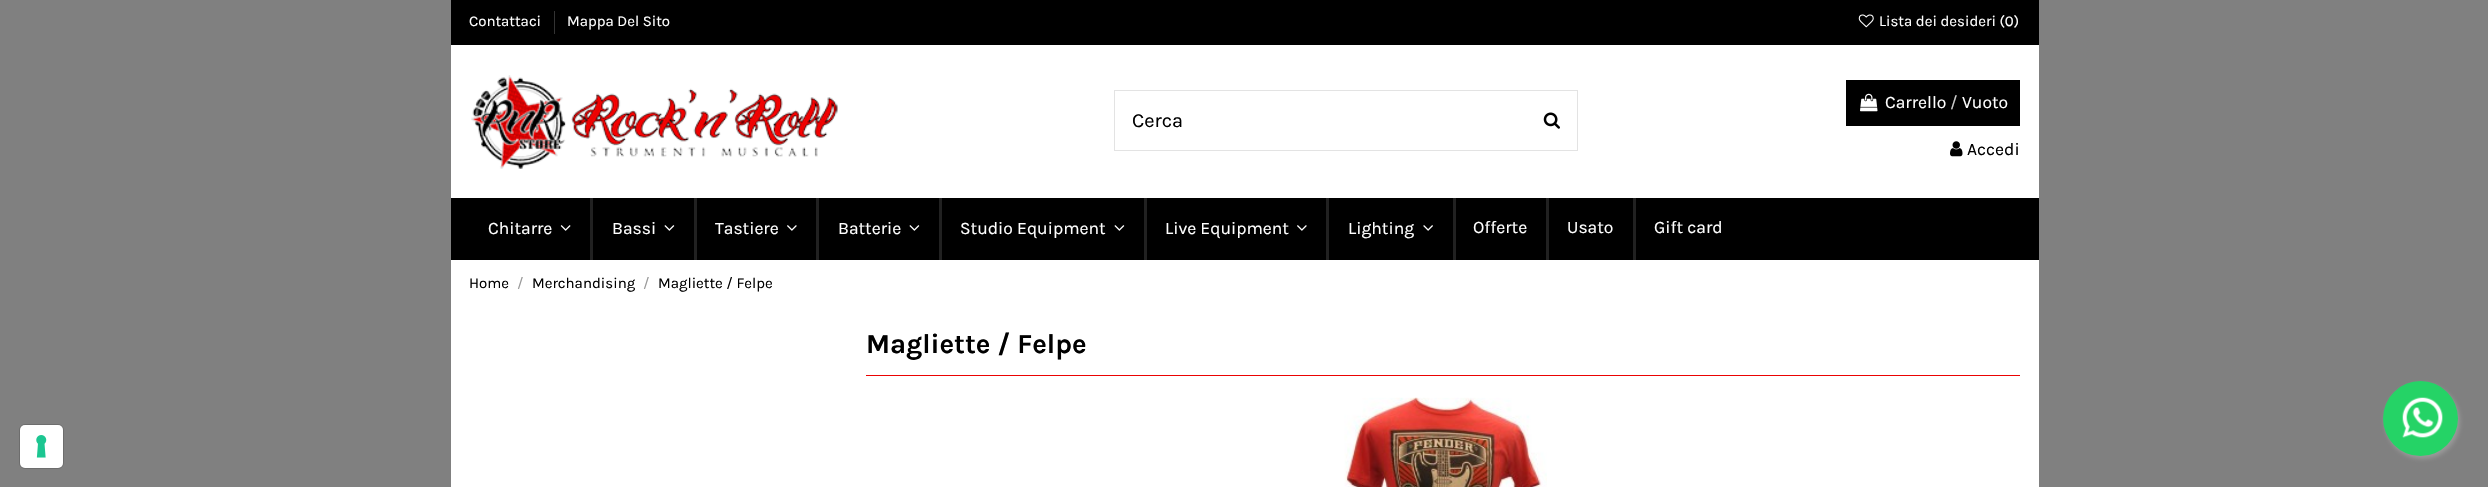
void draw(SkCanvas* canvas) {
  SkPaint paint;
  paint.setAntiAlias(true);
  auto face = [&](const char* family, int weight, float size, bool italic = false) {
    SkFontStyle style(weight, SkFontStyle::kNormal_Width,
      italic ? SkFontStyle::kItalic_Slant : SkFontStyle::kUpright_Slant);
    SkFont result(fontMgr->matchFamilyStyle(family, style), size);
    result.setSubpixel(true);
    return result;
  };
  auto paste = [&](const char* path, float x, float y, float w, float h) {
    auto image = SkImages::DeferredFromEncodedData(SkData::MakeFromFileName(path));
    canvas->drawImageRect(image, SkRect::MakeXYWH(x, y, w, h), SkSamplingOptions());
  };
  canvas->clear(0xff808080);
  {
    const struct { float x, y, w, h; SkColor color; } items[] = {
      {451, 45, 1588, 153, 0xffffffff},
      {451, 0, 1588, 45, 0xff000000},
      {554, 11, 1, 23, 0xff333333},
    };
    for (auto [x, y, w, h, color] : items) {
      paint.setColor(color);
      canvas->drawRect(SkRect::MakeXYWH(x, y, w, h), paint);
    }
  }
  paste("img/1.png", 1858, 14, 16, 14);
  paste("img/2.png", 471, 75, 367, 94);
  paint.setStroke(true);
  paint.setStrokeWidth(1);
  paint.setColor(0xffe3e3e3);
  canvas->drawRect(SkRect::MakeXYWH(1114.5f, 90.5f, 463, 60), paint);
  paste("img/3.png", 1543, 112, 17, 17);
  paint.setStroke(false);
  paint.setColor(0xff000000);
  canvas->drawRect(SkRect::MakeXYWH(1846, 80, 174, 46), paint);
  paste("img/4.png", 1860, 93, 18, 19);
  paste("img/5.png", 1950, 141, 13, 16);
  canvas->drawRect(SkRect::MakeXYWH(451, 198, 1588, 62), paint);
  paste("img/6.png", 560, 225, 11, 6);
  paint.setColor(0xff212121);
  canvas->drawRect(SkRect::MakeXYWH(590, 198, 3, 62), paint);
  paste("img/7.png", 664, 225, 11, 6);
  canvas->drawRect(SkRect::MakeXYWH(694, 198, 3, 62), paint);
  paste("img/8.png", 787, 225, 10, 6);
  canvas->drawRect(SkRect::MakeXYWH(816, 198, 3, 62), paint);
  paste("img/7.png", 909, 225, 11, 6);
  canvas->drawRect(SkRect::MakeXYWH(939, 198, 3, 62), paint);
  paste("img/7.png", 1114, 225, 11, 6);
  canvas->drawRect(SkRect::MakeXYWH(1144, 198, 3, 62), paint);
  paste("img/8.png", 1297, 225, 10, 6);
  canvas->drawRect(SkRect::MakeXYWH(1326, 198, 3, 62), paint);
  paste("img/9.png", 1423, 225, 10, 6);
  {
    const struct { float x, y, w, h; SkColor color; } items[] = {
      {1453, 198, 3, 62, 0xff212121},
      {1546, 198, 3, 62, 0xff212121},
      {1633, 198, 3, 62, 0xff212121},
      {451, 260, 1588, 227, 0xffffffff},
      {866, 375, 1154, 1, 0xffeb0303},
    };
    for (auto [x, y, w, h, color] : items) {
      paint.setColor(color);
      canvas->drawRect(SkRect::MakeXYWH(x, y, w, h), paint);
    }
  }
  paste("img/10.png", 1344, 397, 203, 90);
  paint.setStroke(true);
  paint.setColor(0xff6d6d6d);
  canvas->drawRoundRect(SkRect::MakeXYWH(19.5f, 424.5f, 44, 44), 5.5f, 5.5f, paint);
  paint.setStroke(false);
  paint.setColor(0xffffffff);
  canvas->drawRoundRect(SkRect::MakeXYWH(20, 425, 43, 43), 5, 5, paint);
  paste("img/11.png", 36, 435, 11, 23);
  paint.setColor(0xff999999);
  paint.setMaskFilter(SkMaskFilter::MakeBlur(kNormal_SkBlurStyle, 2));
  canvas->drawRoundRect(SkRect::MakeXYWH(2385, 384, 75, 75), 37.5f, 37.5f, paint);
  paint.setMaskFilter(nullptr);
  paint.setColor(0xff25d366);
  canvas->drawCircle(2420.5f, 418.5f, 37.5f, paint);
  paste("img/12.png", 2402, 397, 41, 41);
  auto f0 = face("Karla", 400, 15);
  paint.setColor(0xffffffff);
  {
    const struct { const char* s; float x, y; } items[] = {
      {"Contattaci", 469, 26},
      {"Mappa Del Sito", 567, 26},
      {"Lista dei desideri (0)", 1879, 26},
    };
    for (auto [s, x, y] : items) {
      canvas->drawString(s, x, y, f0, paint);
    }
  }
  auto f1 = face("Karla", 400, 20);
  paint.setColor(0xff000000);
  canvas->drawString("Cerca", 1132, 127, f1, paint);
  auto f2 = face("Karla", 400, 17.5f);
  paint.setColor(0xffffffff);
  canvas->drawString("Carrello", 1885, 108, f2, paint);
  paint.setColor(0xffcccccc);
  canvas->drawString("/", 1950, 108, f2, paint);
  paint.setColor(0xffffffff);
  canvas->drawString("Vuoto", 1962, 108, f2, paint);
  paint.setColor(0xff000000);
  canvas->drawString("Accedi", 1967, 155, f2, paint);
  paint.setColor(0xffffffff);
  {
    const struct { const char* s; float x, y; } items[] = {
      {"Chitarre", 488, 234},
      {"Bassi", 612, 234},
      {"Tastiere", 715, 234},
      {"Batterie", 838, 234},
      {"Studio Equipment", 960, 234},
      {"Live Equipment", 1165, 234},
      {"Lighting", 1348, 234},
      {"Offerte", 1473, 233},
      {"Usato", 1567, 233},
      {"Gift card", 1654, 233},
    };
    for (auto [s, x, y] : items) {
      canvas->drawString(s, x, y, f2, paint);
    }
  }
  paint.setColor(0xff000000);
  canvas->drawString("Home", 469, 288, f0, paint);
  paint.setColor(0xff999999);
  canvas->drawString("/", 517, 288, f0, paint);
  paint.setColor(0xff000000);
  canvas->drawString("Merchandising", 532, 288, f0, paint);
  paint.setColor(0xff999999);
  canvas->drawString("/", 643, 288, f0, paint);
  paint.setColor(0xff000000);
  canvas->drawString("Magliette / Felpe", 658, 288, f0, paint);
  auto f3 = face("Karla", 700, 27.5f);
  canvas->drawString("Magliette / Felpe", 866, 353, f3, paint);
}
